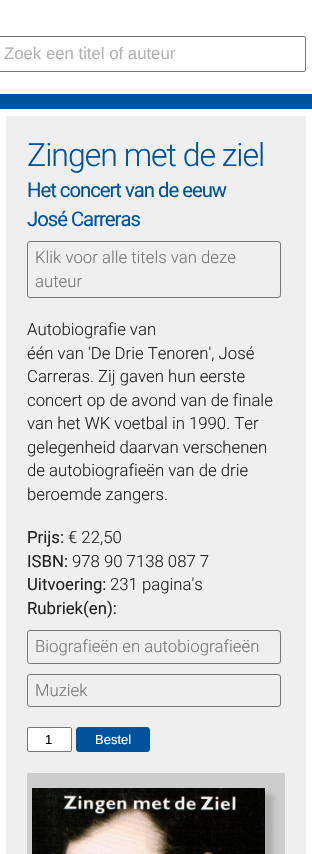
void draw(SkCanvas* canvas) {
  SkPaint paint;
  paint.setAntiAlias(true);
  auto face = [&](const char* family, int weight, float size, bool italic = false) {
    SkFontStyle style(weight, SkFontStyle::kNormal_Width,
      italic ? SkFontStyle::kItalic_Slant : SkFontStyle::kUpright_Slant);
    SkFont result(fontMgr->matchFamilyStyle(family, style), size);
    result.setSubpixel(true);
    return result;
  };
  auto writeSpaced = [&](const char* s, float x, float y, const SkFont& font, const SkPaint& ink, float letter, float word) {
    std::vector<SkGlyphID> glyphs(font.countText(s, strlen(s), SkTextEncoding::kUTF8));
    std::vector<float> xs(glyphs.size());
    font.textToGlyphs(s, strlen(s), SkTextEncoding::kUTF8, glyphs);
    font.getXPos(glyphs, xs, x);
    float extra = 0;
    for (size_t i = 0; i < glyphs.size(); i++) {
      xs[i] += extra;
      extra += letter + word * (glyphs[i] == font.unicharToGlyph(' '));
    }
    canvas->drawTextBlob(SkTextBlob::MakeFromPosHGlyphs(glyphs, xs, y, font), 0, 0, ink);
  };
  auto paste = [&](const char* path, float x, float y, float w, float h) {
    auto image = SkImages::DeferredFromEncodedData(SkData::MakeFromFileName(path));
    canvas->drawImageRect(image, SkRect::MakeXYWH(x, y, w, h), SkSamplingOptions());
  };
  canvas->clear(0xffffffff);
  paint.setStroke(true);
  paint.setStrokeWidth(1);
  paint.setColor(0xff767676);
  canvas->drawRoundRect(SkRect::MakeXYWH(-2.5f, 36.5f, 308, 35), 1.5f, 1.5f, paint);
  paint.setStroke(false);
  paint.setColor(0xff00539c);
  canvas->drawRect(SkRect::MakeXYWH(0, 94, 312, 15), paint);
  paint.setColor(0xffefefef);
  canvas->drawRect(SkRect::MakeXYWH(6, 116, 300, 738), paint);
  paint.setStroke(true);
  paint.setColor(0xff777777);
  canvas->drawRoundRect(SkRect::MakeXYWH(27.5f, 241.5f, 253, 56), 2.5f, 2.5f, paint);
  canvas->drawRoundRect(SkRect::MakeXYWH(27.5f, 630.5f, 253, 33), 2.5f, 2.5f, paint);
  canvas->drawRoundRect(SkRect::MakeXYWH(27.5f, 674.5f, 253, 32), 2.5f, 2.5f, paint);
  paint.setStroke(false);
  paint.setColor(0xffffffff);
  canvas->drawRoundRect(SkRect::MakeXYWH(27.5f, 727.5f, 44, 24), 1.5f, 1.5f, paint);
  paint.setStroke(true);
  paint.setColor(0xff767676);
  canvas->drawRoundRect(SkRect::MakeXYWH(27.5f, 727.5f, 44, 24), 1.5f, 1.5f, paint);
  paint.setStroke(false);
  paint.setColor(0xff00539c);
  canvas->drawRoundRect(SkRect::MakeXYWH(76.5f, 727.5f, 73, 24), 2.5f, 2.5f, paint);
  paint.setStroke(true);
  canvas->drawRoundRect(SkRect::MakeXYWH(76.5f, 727.5f, 73, 24), 2.5f, 2.5f, paint);
  paint.setStroke(false);
  paint.setColor(0xffcdcdcd);
  canvas->drawRect(SkRect::MakeXYWH(27, 773, 258, 81), paint);
  paint.setColor(0xffadadad);
  paint.setMaskFilter(SkMaskFilter::MakeBlur(kNormal_SkBlurStyle, 2.5f));
  canvas->drawRect(SkRect::MakeXYWH(38, 794, 235, 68), paint);
  paint.setMaskFilter(nullptr);
  paste("img/1.png", 32, 788, 233, 66);
  auto f0 = face("Liberation Sans", 400, 16.75f);
  paint.setColor(0xffb3b3b3);
  canvas->drawString("Zoek een titel of auteur", 4, 59, f0, paint);
  auto f1 = face("Roboto", 300, 32);
  paint.setColor(0xff00539c);
  writeSpaced("Zingen met de ziel", 27, 166, f1, paint, -1, 0);
  auto f2 = face("Roboto", 400, 20.25f);
  writeSpaced("Het concert van de eeuw", 27, 197, f2, paint, -1, 0);
  writeSpaced("José Carreras", 27, 226, f2, paint, -1, 0);
  auto f3 = face("Roboto", 300, 16.75f);
  paint.setColor(0xff777777);
  canvas->drawString("Klik voor alle titels van deze", 35, 263, f3, paint);
  canvas->drawString("auteur", 35, 287, f3, paint);
  paint.setColor(0xff222222);
  {
    const struct { const char* s; float x, y; } items[] = {
      {"Autobiografie van", 27, 335},
      {"één van 'De Drie Tenoren', José", 27, 359},
      {"Carreras. Zij gaven hun eerste", 27, 382},
      {"concert op de avond van de finale", 27, 406},
      {"van het WK voetbal in 1990. Ter", 27, 429},
      {"gelegenheid daarvan verschenen", 27, 453},
      {"de autobiografieën van de drie", 27, 476},
      {"beroemde zangers.", 27, 500},
    };
    for (auto [s, x, y] : items) {
      canvas->drawString(s, x, y, f3, paint);
    }
  }
  auto f4 = face("Roboto", 400, 16.75f);
  canvas->drawString("Prijs:", 27, 543, f4, paint);
  canvas->drawString("€ 22,50", 68, 543, f3, paint);
  canvas->drawString("ISBN:", 27, 567, f4, paint);
  canvas->drawString("978 90 7138 087 7", 72, 567, f3, paint);
  canvas->drawString("Uitvoering:", 27, 590, f4, paint);
  canvas->drawString("231 pagina's", 110, 590, f3, paint);
  canvas->drawString("Rubriek(en):", 27, 614, f4, paint);
  paint.setColor(0xff777777);
  canvas->drawString("Biografieën en autobiografieën", 35, 652, f3, paint);
  canvas->drawString("Muziek", 35, 696, f3, paint);
  auto f5 = face("Liberation Sans", 400, 13);
  paint.setColor(0xff000000);
  canvas->drawString("1", 45, 744, f5, paint);
  paint.setColor(0xffffffff);
  canvas->drawString("Bestel", 95, 744, f5, paint);
}
